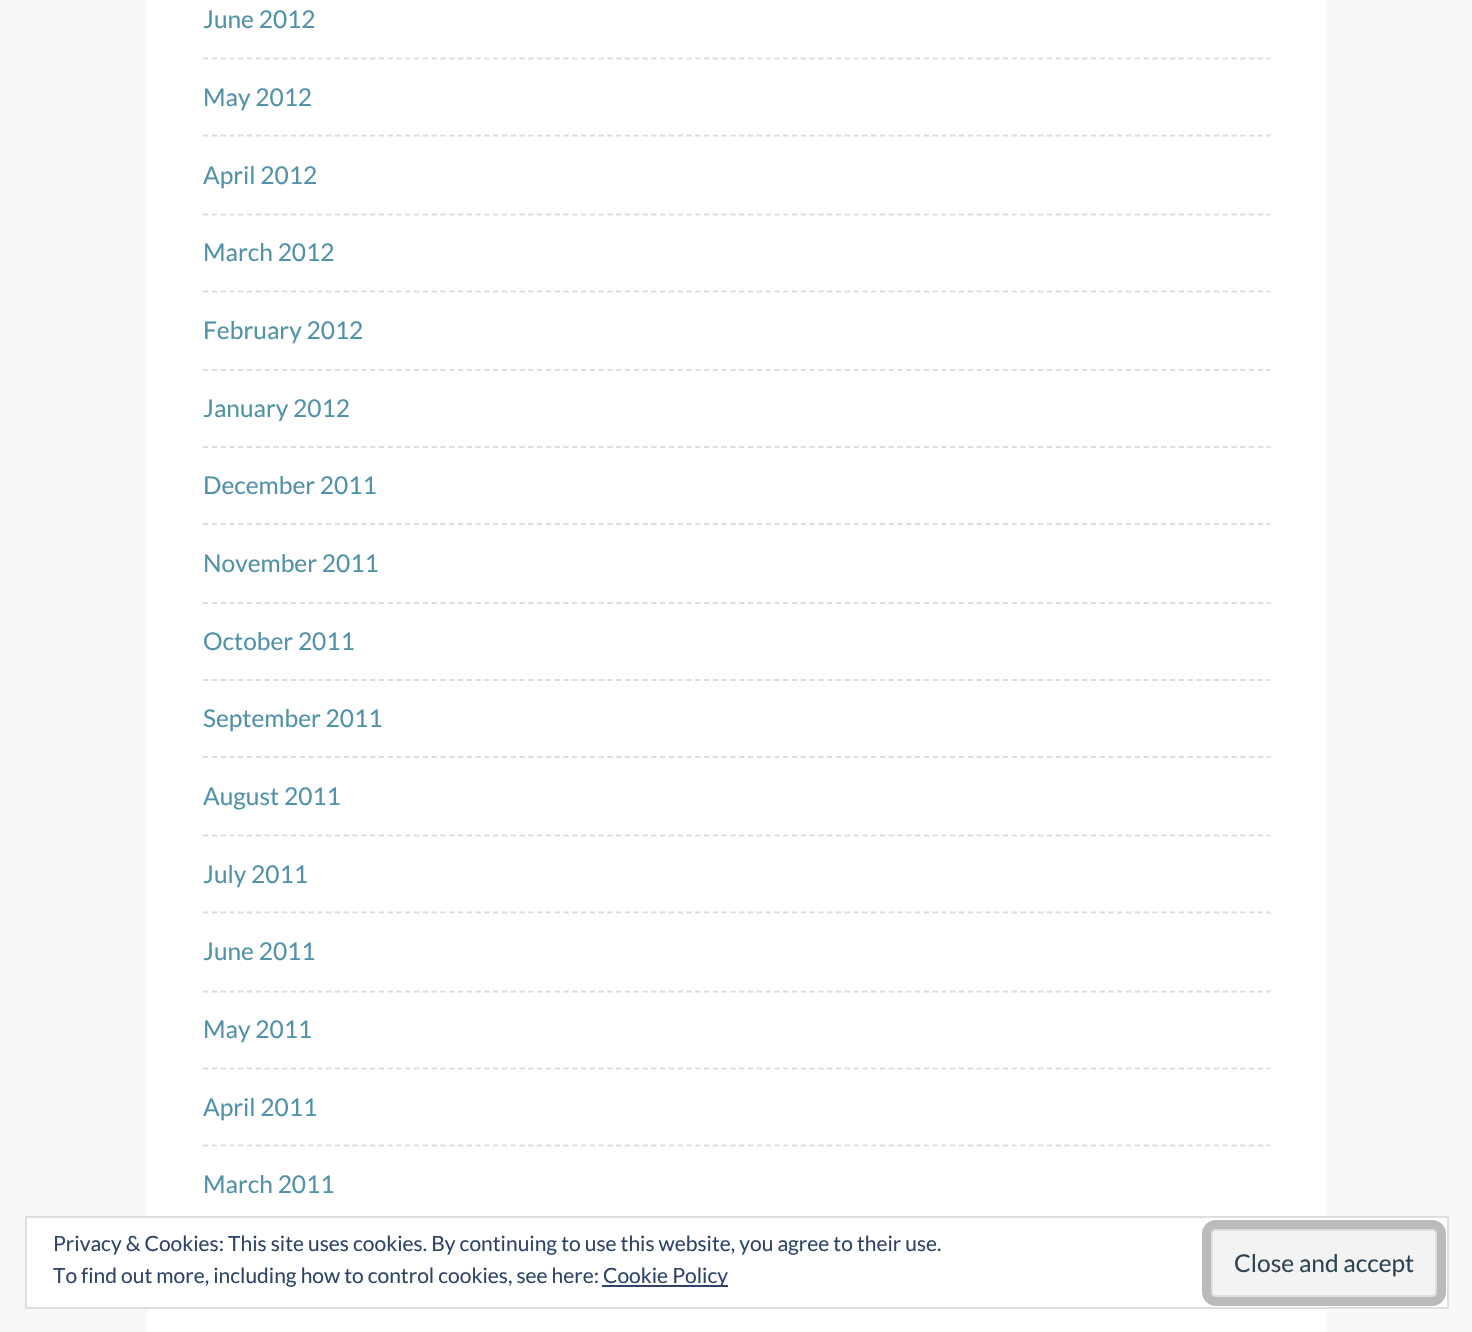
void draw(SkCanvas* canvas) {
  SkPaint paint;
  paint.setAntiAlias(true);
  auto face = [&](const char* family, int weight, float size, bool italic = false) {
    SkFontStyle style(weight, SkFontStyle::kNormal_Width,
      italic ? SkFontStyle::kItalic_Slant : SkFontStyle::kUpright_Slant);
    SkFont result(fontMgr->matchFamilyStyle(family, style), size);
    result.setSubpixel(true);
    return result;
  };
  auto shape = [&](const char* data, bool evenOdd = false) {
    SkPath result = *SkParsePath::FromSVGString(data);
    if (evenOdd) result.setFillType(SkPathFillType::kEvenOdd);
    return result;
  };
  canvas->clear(0xfff8f8f8);
  paint.setColor(0xffffffff);
  canvas->drawRect(SkRect::MakeXYWH(147, 0, 1180, 1332), paint);
  paint.setStroke(true);
  paint.setStrokeWidth(1.8f);
  paint.setColor(0xffdddddd);
  paint.setPathEffect(SkDashPathEffect::Make({{5.25f, 3.54f}}, 0));
  canvas->drawPath(shape("M203 58.5H1270.5"), paint);
  paint.setPathEffect(nullptr);
  paint.setPathEffect(SkDashPathEffect::Make({{5.25f, 3.54f}}, 0));
  canvas->drawPath(shape("M203 135.5H1270.5"), paint);
  paint.setPathEffect(nullptr);
  paint.setPathEffect(SkDashPathEffect::Make({{5.25f, 3.54f}}, 0));
  canvas->drawPath(shape("M203 214.5H1270.5"), paint);
  paint.setPathEffect(nullptr);
  paint.setPathEffect(SkDashPathEffect::Make({{5.25f, 3.54f}}, 0));
  canvas->drawPath(shape("M203 291.5H1270.5"), paint);
  paint.setPathEffect(nullptr);
  paint.setPathEffect(SkDashPathEffect::Make({{5.25f, 3.54f}}, 0));
  canvas->drawPath(shape("M203 370H1270.5"), paint);
  paint.setPathEffect(nullptr);
  paint.setPathEffect(SkDashPathEffect::Make({{5.25f, 3.54f}}, 0));
  canvas->drawPath(shape("M203 447H1270.5"), paint);
  paint.setPathEffect(nullptr);
  paint.setPathEffect(SkDashPathEffect::Make({{5.25f, 3.54f}}, 0));
  canvas->drawPath(shape("M203 524H1270.5"), paint);
  paint.setPathEffect(nullptr);
  paint.setPathEffect(SkDashPathEffect::Make({{5.25f, 3.54f}}, 0));
  canvas->drawPath(shape("M203 603H1270.5"), paint);
  paint.setPathEffect(nullptr);
  paint.setPathEffect(SkDashPathEffect::Make({{5.25f, 3.54f}}, 0));
  canvas->drawPath(shape("M203 680H1270.5"), paint);
  paint.setPathEffect(nullptr);
  paint.setPathEffect(SkDashPathEffect::Make({{5.25f, 3.54f}}, 0));
  canvas->drawPath(shape("M203 757H1270.5"), paint);
  paint.setPathEffect(nullptr);
  paint.setPathEffect(SkDashPathEffect::Make({{5.25f, 3.54f}}, 0));
  canvas->drawPath(shape("M203 835.5H1270.5"), paint);
  paint.setPathEffect(nullptr);
  paint.setPathEffect(SkDashPathEffect::Make({{5.25f, 3.54f}}, 0));
  canvas->drawPath(shape("M203 912.5H1270.5"), paint);
  paint.setPathEffect(nullptr);
  paint.setPathEffect(SkDashPathEffect::Make({{5.25f, 3.54f}}, 0));
  canvas->drawPath(shape("M203 991.5H1270.5"), paint);
  paint.setPathEffect(nullptr);
  paint.setPathEffect(SkDashPathEffect::Make({{5.25f, 3.54f}}, 0));
  canvas->drawPath(shape("M203 1068.5H1270.5"), paint);
  paint.setPathEffect(nullptr);
  paint.setPathEffect(SkDashPathEffect::Make({{5.25f, 3.54f}}, 0));
  canvas->drawPath(shape("M203 1145.5H1270.5"), paint);
  paint.setPathEffect(nullptr);
  paint.setStroke(false);
  paint.setColor(0xffffffff);
  canvas->drawRect(SkRect::MakeXYWH(26, 1217, 1422, 91), paint);
  paint.setStroke(true);
  paint.setStrokeWidth(2);
  paint.setColor(0xffdedede);
  canvas->drawRect(SkRect::MakeXYWH(26, 1217, 1422, 91), paint);
  paint.setStroke(false);
  paint.setColor(0xff2e4467);
  canvas->drawRect(SkRect::MakeXYWH(602, 1285, 126, 2), paint);
  paint.setColor(0xfff3f3f3);
  canvas->drawRoundRect(SkRect::MakeXYWH(1212, 1230, 224, 66), 4, 4, paint);
  paint.setStroke(true);
  paint.setColor(0xffdedede);
  canvas->drawRoundRect(SkRect::MakeXYWH(1212, 1230, 224, 66), 4, 4, paint);
  paint.setStrokeWidth(9);
  paint.setColor(0xffbbbbbb);
  canvas->drawRoundRect(SkRect::MakeXYWH(1206.5f, 1224.5f, 235, 77), 9.5f, 9.5f, paint);
  auto f0 = face("Lato", 400, 24.5f);
  paint.setStroke(false);
  paint.setColor(0xff5192a8);
  {
    const struct { const char* s; float x, y; } items[] = {
      {"June 2012", 203, 28},
      {"May 2012", 203, 106},
      {"April 2012", 203, 184},
      {"March 2012", 203, 261},
      {"February 2012", 203, 339},
      {"January 2012", 203, 417},
      {"December 2011", 203, 494},
      {"November 2011", 203, 572},
      {"October 2011", 203, 650},
      {"September 2011", 203, 727},
      {"August 2011", 203, 805},
      {"July 2011", 203, 883},
      {"June 2011", 203, 960},
      {"May 2011", 203, 1038},
      {"April 2011", 203, 1116},
      {"March 2011", 203, 1193},
    };
    for (auto [s, x, y] : items) {
      canvas->drawString(s, x, y, f0, paint);
    }
  }
  auto f1 = face("Lato", 400, 21);
  paint.setColor(0xff2e4467);
  {
    const struct { const char* s; float x, y; } items[] = {
      {"Privacy & Cookies: This site uses cookies. By continuing to use this website, you agree to their use.", 53, 1251},
      {"To find out more, including how to control cookies, see here:", 53, 1283},
      {"Cookie Policy", 603, 1283},
    };
    for (auto [s, x, y] : items) {
      canvas->drawString(s, x, y, f1, paint);
    }
  }
  paint.setColor(0xff2e4453);
  canvas->drawString("Close and accept", 1234, 1272, f0, paint);
}
